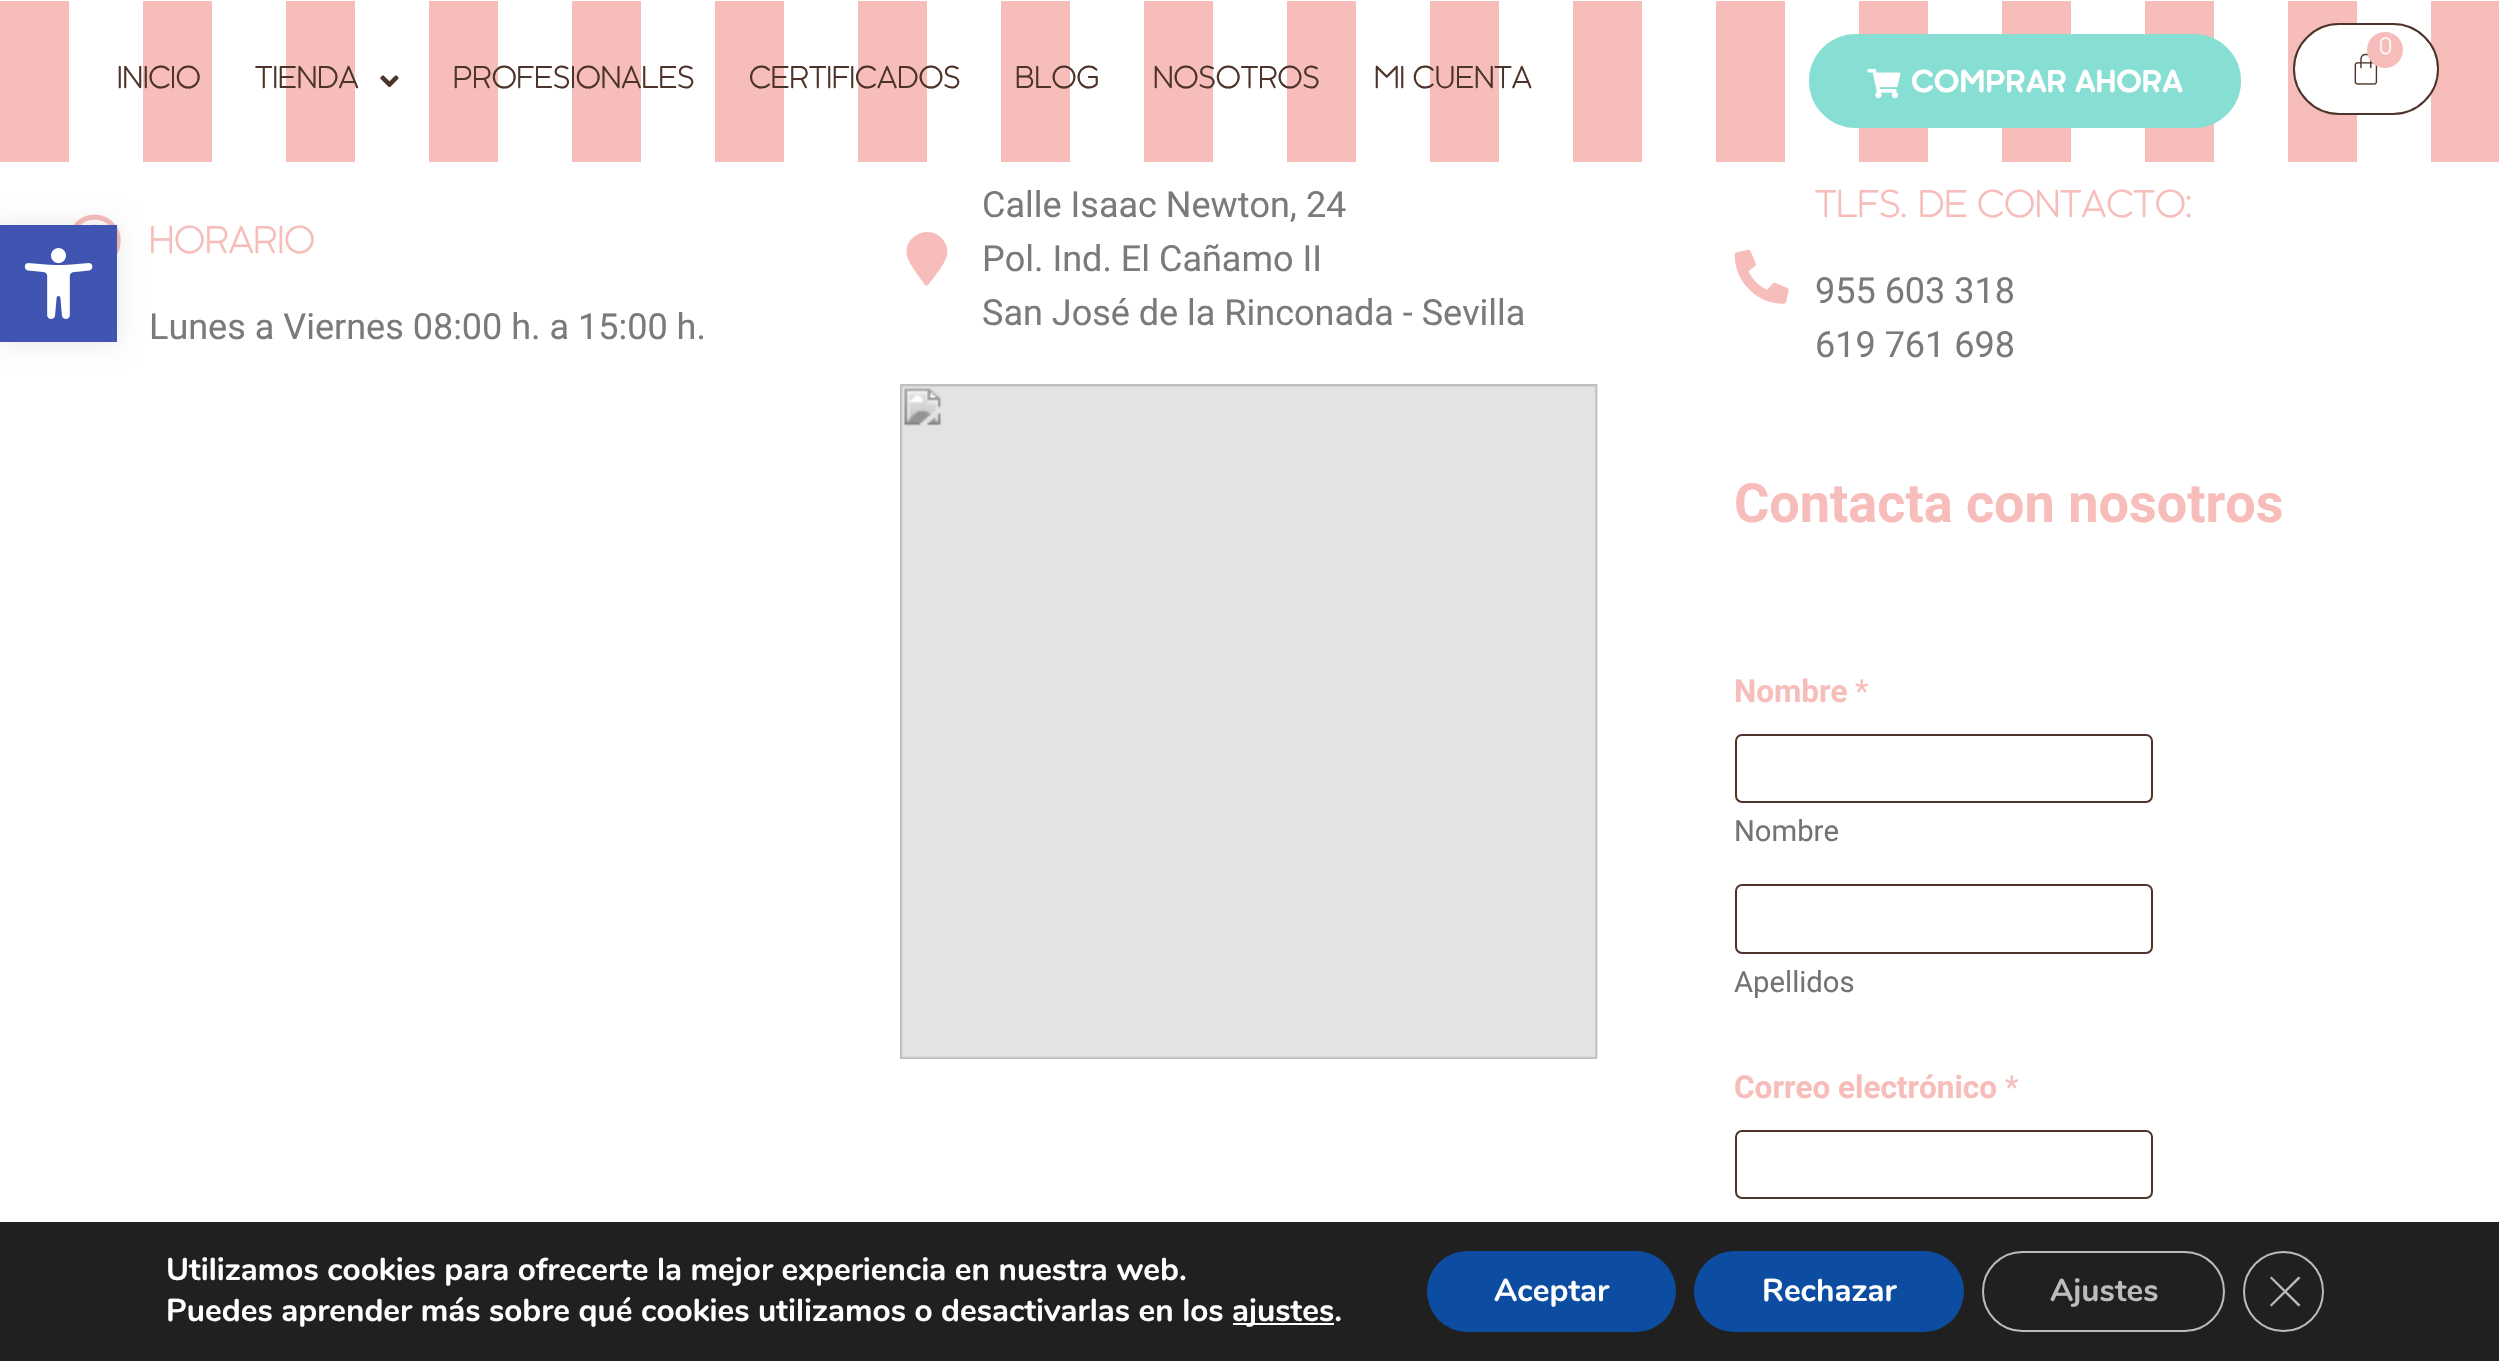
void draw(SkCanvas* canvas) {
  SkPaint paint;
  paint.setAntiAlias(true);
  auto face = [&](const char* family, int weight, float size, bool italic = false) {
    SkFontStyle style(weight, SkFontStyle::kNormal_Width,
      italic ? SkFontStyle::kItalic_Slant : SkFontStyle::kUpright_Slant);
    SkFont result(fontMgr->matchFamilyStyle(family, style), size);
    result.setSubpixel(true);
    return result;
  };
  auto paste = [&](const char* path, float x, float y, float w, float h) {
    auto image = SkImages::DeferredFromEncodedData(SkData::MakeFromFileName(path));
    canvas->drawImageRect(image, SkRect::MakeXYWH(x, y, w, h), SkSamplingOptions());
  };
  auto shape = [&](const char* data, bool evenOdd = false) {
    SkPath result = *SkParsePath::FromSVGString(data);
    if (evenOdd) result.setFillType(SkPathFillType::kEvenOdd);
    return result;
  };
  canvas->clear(0xffffffff);
  {
    const struct { float x, y, w, h; SkColor color; } items[] = {
      {0, 1, 69, 161, 0xfff7bdba},
      {143, 1, 69, 161, 0xfff7bdba},
      {286, 1, 69, 161, 0xfff7bdba},
      {429, 1, 69, 161, 0xfff7bdba},
      {572, 1, 69, 161, 0xfff7bdba},
      {715, 1, 69, 161, 0xfff7bdba},
      {858, 1, 69, 161, 0xfff7bdba},
      {1001, 1, 69, 161, 0xfff7bdba},
      {1144, 1, 69, 161, 0xfff7bdba},
      {1287, 1, 69, 161, 0xfff7bdba},
      {1430, 1, 69, 161, 0xfff7bdba},
      {1573, 1, 69, 161, 0xfff7bdba},
      {1716, 1, 69, 161, 0xfff7bdba},
      {1859, 1, 69, 161, 0xfff7bdba},
      {2002, 1, 69, 161, 0xfff7bdba},
      {2145, 1, 69, 161, 0xfff7bdba},
      {2288, 1, 69, 161, 0xfff7bdba},
      {2431, 1, 68, 161, 0xfff7bdba},
    };
    for (auto [x, y, w, h, color] : items) {
      paint.setColor(color);
      canvas->drawRect(SkRect::MakeXYWH(x, y, w, h), paint);
    }
  }
  paint.setColor(0xffffffff);
  canvas->drawRoundRect(SkRect::MakeXYWH(2294, 24, 144, 90), 45, 45, paint);
  paint.setStroke(true);
  paint.setStrokeWidth(2);
  paint.setColor(0xff4d342a);
  canvas->drawRoundRect(SkRect::MakeXYWH(2294, 24, 144, 90), 45, 45, paint);
  paste("img/1.png", 2354, 53, 24, 32);
  paint.setStroke(false);
  paint.setColor(0xfff7bdba);
  canvas->drawCircle(2385, 50, 18, paint);
  paste("img/2.png", 380, 75, 19, 13);
  paint.setColor(0xff87ded3);
  canvas->drawRoundRect(SkRect::MakeXYWH(1810, 35, 430, 92), 46, 46, paint);
  paint.setStroke(true);
  canvas->drawRoundRect(SkRect::MakeXYWH(1810, 35, 430, 92), 46, 46, paint);
  paste("img/3.png", 1867, 68, 34, 31);
  paste("img/5.png", 73, 214, 48, 40);
  paint.setStroke(false);
  paint.setColor(0x1a000000);
  paint.setMaskFilter(SkMaskFilter::MakeBlur(kNormal_SkBlurStyle, 11));
  canvas->drawRect(SkRect::MakeXYWH(0, 225, 117, 117), paint);
  paint.setMaskFilter(nullptr);
  paint.setColor(0xff4054b2);
  canvas->drawRect(SkRect::MakeXYWH(0, 225, 117, 117), paint);
  paste("img/4.png", 24, 248, 69, 71);
  paint.setColor(0xfff7bdba);
  canvas->drawPath(shape("M925 285C920 278 909 264 907 256C903 234 932 223 944 241C953 254 942 266 935 276L928 285C927 286 926 286 925 285Z"), paint);
  paste("img/6.png", 900, 384, 698, 675);
  paste("img/7.png", 1734, 249, 55, 55);
  paint.setStroke(true);
  paint.setColor(0xff4d342a);
  canvas->drawRoundRect(SkRect::MakeXYWH(1736, 735, 416, 67), 6, 6, paint);
  canvas->drawRoundRect(SkRect::MakeXYWH(1736, 885, 416, 68), 6, 6, paint);
  canvas->drawRoundRect(SkRect::MakeXYWH(1736, 1131, 416, 67), 6, 6, paint);
  paint.setStroke(false);
  paint.setColor(0xff202020);
  canvas->drawRect(SkRect::MakeXYWH(0, 1222, 2499, 139), paint);
  paint.setColor(0xffffffff);
  canvas->drawRect(SkRect::MakeXYWH(1233, 1323, 101, 2), paint);
  paint.setColor(0xff0c4da2);
  canvas->drawRoundRect(SkRect::MakeXYWH(1427, 1251, 249, 81), 40.5f, 40.5f, paint);
  canvas->drawRoundRect(SkRect::MakeXYWH(1694, 1251, 270, 81), 40.5f, 40.5f, paint);
  paint.setStroke(true);
  paint.setColor(0xffbcbcbc);
  canvas->drawRoundRect(SkRect::MakeXYWH(1983, 1252, 241, 79), 39.5f, 39.5f, paint);
  canvas->drawCircle(2283.5f, 1291.5f, 39.5f, paint);
  paint.setStroke(false);
  canvas->drawPath(shape("M2298.5 1276.5L2300.5 1278L2271.5 1306.5L2270 1305Z"), paint);
  canvas->drawPath(shape("M2270 1278L2271.5 1276.5L2300.5 1305L2298.5 1306.5Z"), paint);
  auto f0 = face("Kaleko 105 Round", 400, 22);
  paint.setColor(0xffffffff);
  canvas->drawString("0", 2379, 54, f0, paint);
  auto f1 = face("Kaleko 105 Round", 400, 29.25f);
  paint.setColor(0xff4d342a);
  {
    const struct { const char* s; float x, y; } items[] = {
      {"INICIO", 117, 88},
      {"TIENDA", 255, 88},
      {"PROFESIONALES", 453, 88},
      {"CERTIFICADOS", 749, 88},
      {"BLOG", 1015, 88},
      {"NOSOTROS", 1153, 88},
      {"MI CUENTA", 1374, 88},
    };
    for (auto [s, x, y] : items) {
      canvas->drawString(s, x, y, f1, paint);
    }
  }
  auto f2 = face("Kaleko 105 Round", 700, 29.25f);
  paint.setColor(0xffffffff);
  canvas->drawString("COMPRAR AHORA", 1911, 92, f2, paint);
  auto f3 = face("Kaleko 105 Round", 400, 36);
  paint.setColor(0xfff7bdba);
  canvas->drawString("HORARIO", 149, 253, f3, paint);
  auto f4 = face("Roboto", 400, 36);
  paint.setColor(0xff7a7a7a);
  {
    const struct { const char* s; float x, y; } items[] = {
      {"Lunes a Viernes 08:00 h. a 15:00 h.", 149, 339},
      {"Calle Isaac Newton, 24", 982, 217},
      {"Pol. Ind. El Cañamo II", 982, 271},
      {"San José de la Rinconada - Sevilla", 982, 325},
    };
    for (auto [s, x, y] : items) {
      canvas->drawString(s, x, y, f4, paint);
    }
  }
  paint.setColor(0xfff7bdba);
  canvas->drawString("TLFS. DE CONTACTO:", 1815, 217, f3, paint);
  paint.setColor(0xff7a7a7a);
  canvas->drawString("955 603 318", 1815, 303, f4, paint);
  canvas->drawString("619 761 698", 1815, 357, f4, paint);
  auto f5 = face("Roboto", 700, 54);
  paint.setColor(0xfff7bdba);
  canvas->drawString("Contacta con nosotros", 1734, 522, f5, paint);
  auto f6 = face("Roboto", 700, 31.5f);
  canvas->drawString("Nombre", 1734, 702, f6, paint);
  auto f7 = face("Roboto", 400, 31.5f);
  canvas->drawString("*", 1855, 702, f7, paint);
  auto f8 = face("Roboto", 400, 29.25f);
  paint.setColor(0xff737373);
  canvas->drawString("Nombre", 1734, 841, f8, paint);
  canvas->drawString("Apellidos", 1734, 992, f8, paint);
  paint.setColor(0xfff7bdba);
  canvas->drawString("Correo electrónico", 1734, 1098, f6, paint);
  canvas->drawString("*", 2005, 1098, f7, paint);
  auto f9 = face("Nunito", 700, 31.5f);
  paint.setColor(0xffffffff);
  {
    const struct { const char* s; float x, y; } items[] = {
      {"Utilizamos cookies para ofrecerte la mejor experiencia en nuestra web.", 166, 1280},
      {"Puedes aprender más sobre qué cookies utilizamos o desactivarlas en los", 166, 1321},
      {"ajustes.", 1232, 1321},
      {"Aceptar", 1494, 1301},
      {"Rechazar", 1762, 1301},
    };
    for (auto [s, x, y] : items) {
      canvas->drawString(s, x, y, f9, paint);
    }
  }
  paint.setColor(0xffbcbcbc);
  canvas->drawString("Ajustes", 2050, 1301, f9, paint);
}
